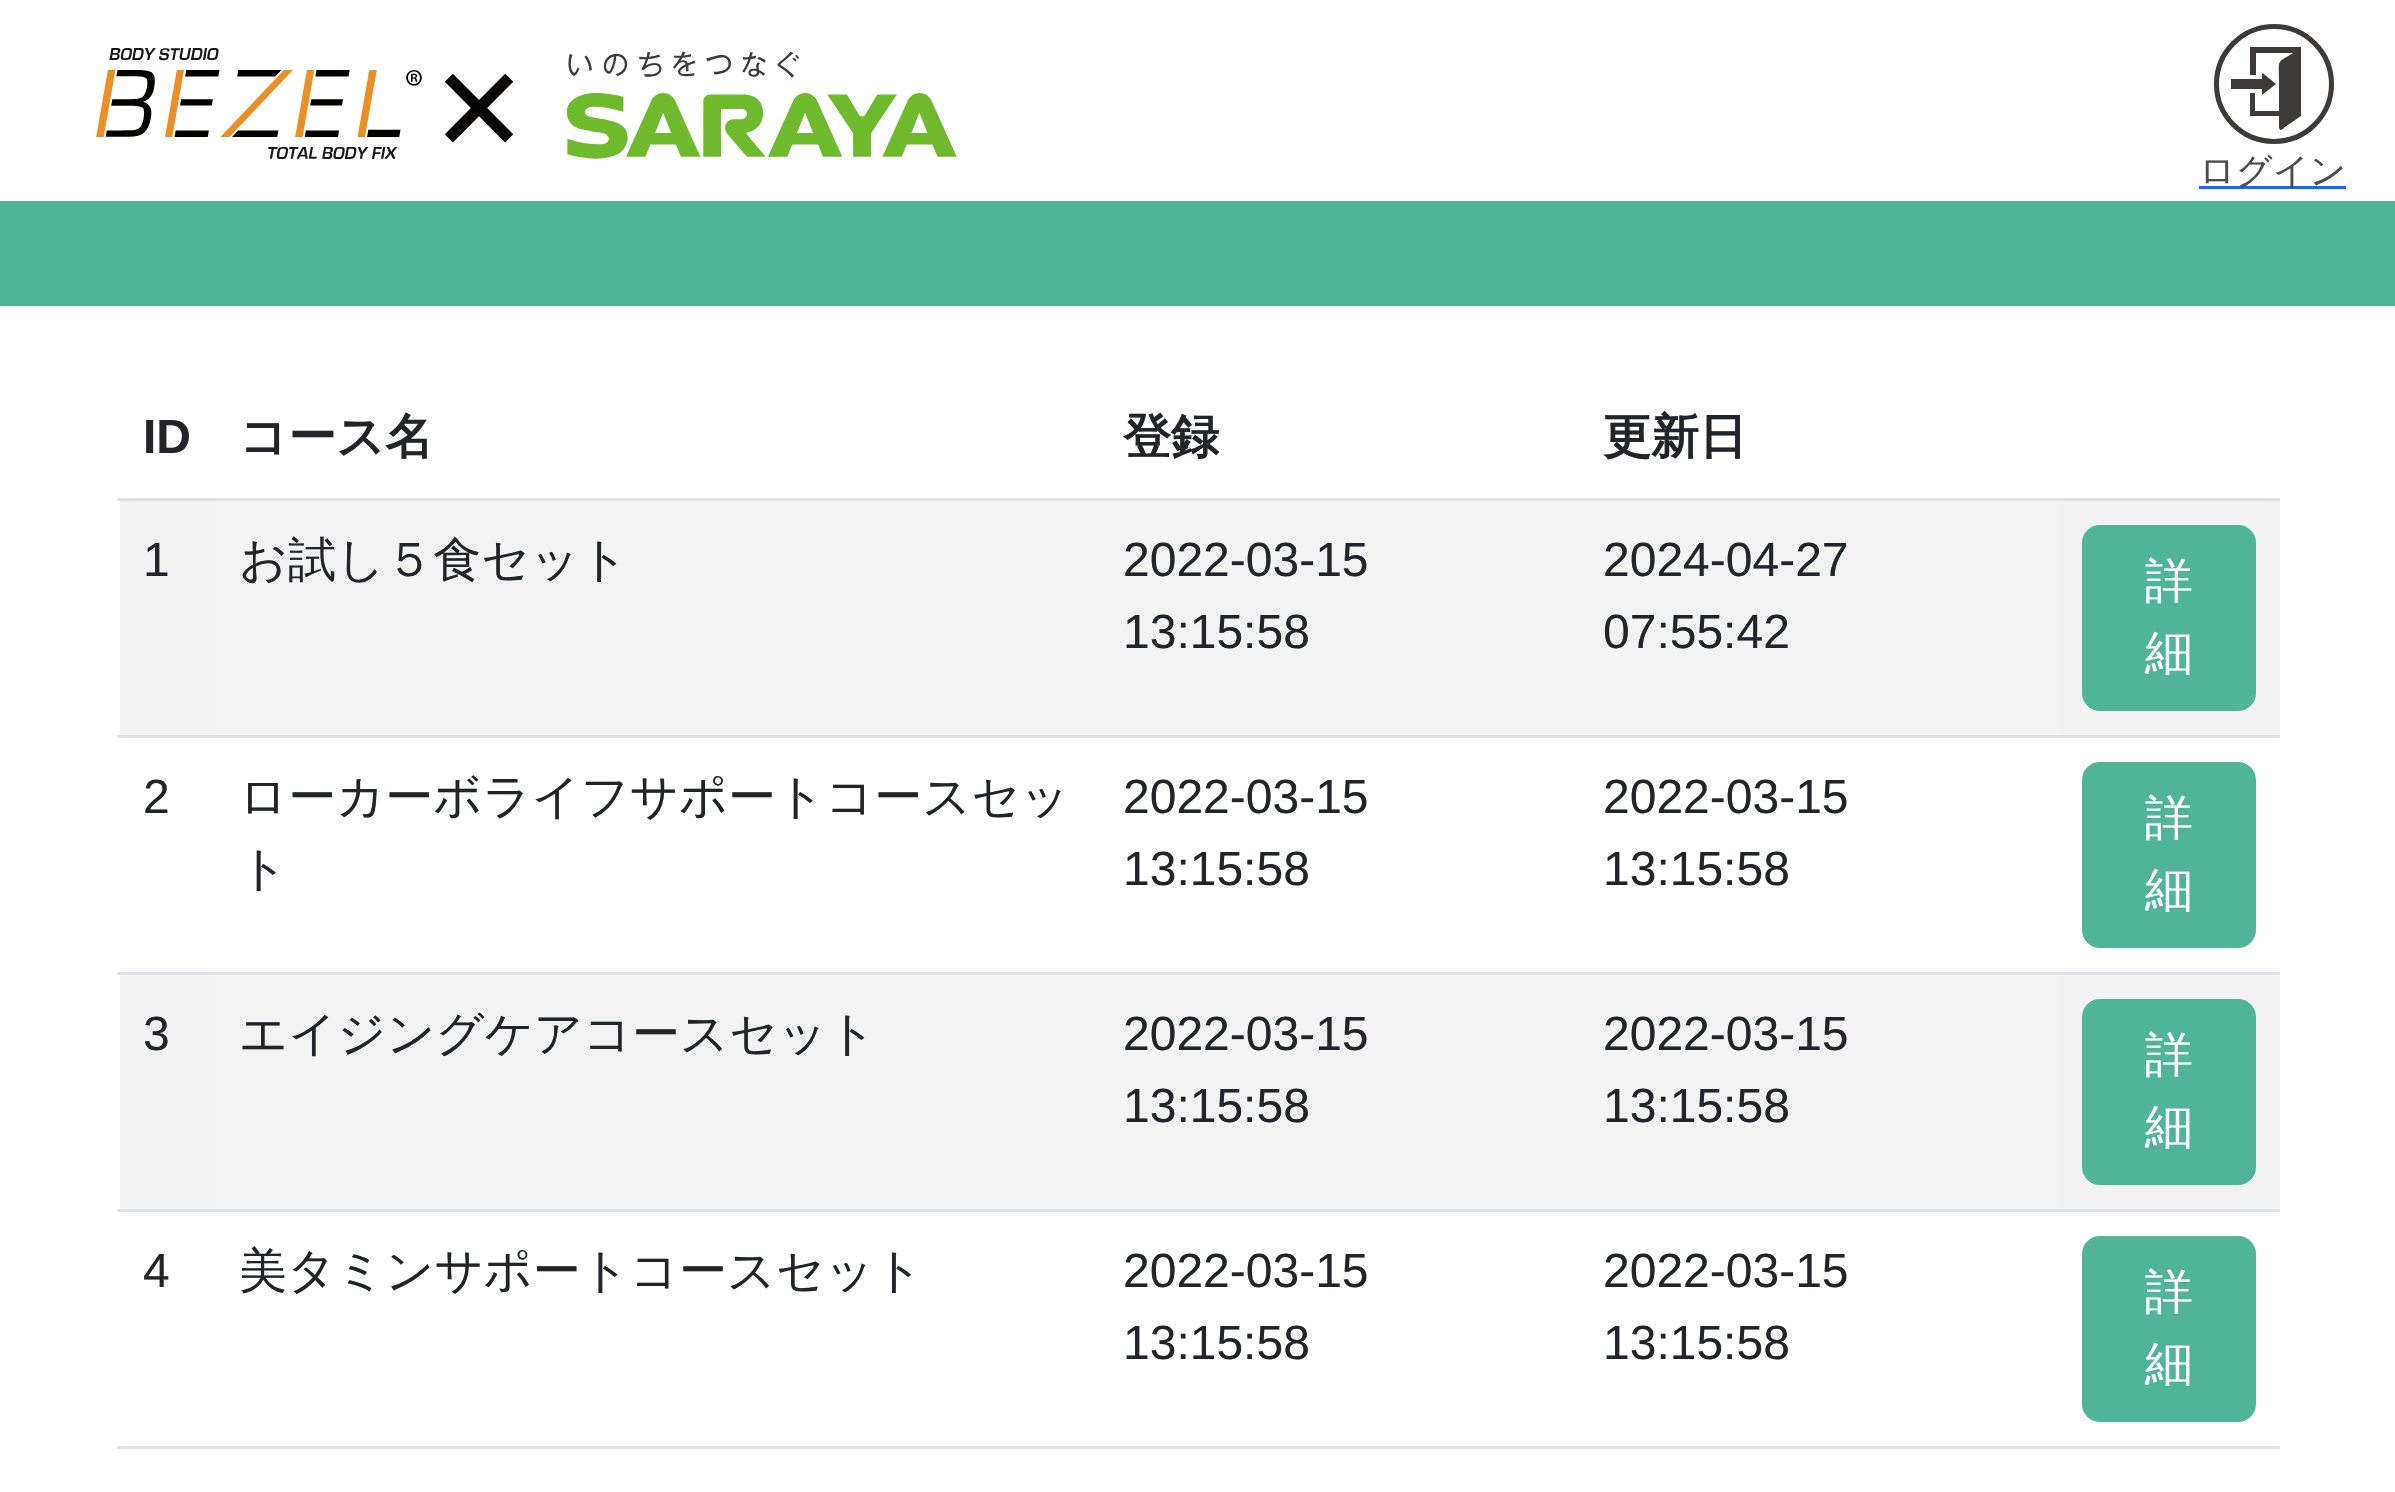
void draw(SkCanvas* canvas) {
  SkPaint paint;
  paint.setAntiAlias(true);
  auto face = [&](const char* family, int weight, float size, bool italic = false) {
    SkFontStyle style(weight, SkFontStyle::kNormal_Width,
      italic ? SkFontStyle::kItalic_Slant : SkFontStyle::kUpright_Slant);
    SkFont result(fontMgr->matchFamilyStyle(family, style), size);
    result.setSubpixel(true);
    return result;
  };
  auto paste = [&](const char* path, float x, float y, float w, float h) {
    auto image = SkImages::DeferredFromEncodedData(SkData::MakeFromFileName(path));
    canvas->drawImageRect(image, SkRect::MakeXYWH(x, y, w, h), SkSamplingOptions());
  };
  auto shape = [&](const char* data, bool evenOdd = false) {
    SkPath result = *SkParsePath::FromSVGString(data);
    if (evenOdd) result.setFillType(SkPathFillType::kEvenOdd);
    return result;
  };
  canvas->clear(0xffffffff);
  paste("img/1.png", 96, 48, 861, 111);
  paint.setStroke(true);
  paint.setStrokeWidth(5.1f);
  paint.setColor(0xff3e3a39);
  canvas->drawCircle(2274, 84, 57.5f, paint);
  paint.setStroke(false);
  canvas->drawPath(shape("M2250 47V75H2256V53H2293C2276 64 2279 58 2279 80V111H2255V93H2250V116H2279V126C2279 132 2282 130 2285 127L2301 116V47Z"), paint);
  canvas->drawPath(shape("M2262 94V95L2276 84L2265 75C2261 71 2262 74 2262 79H2231V89H2262Z"), paint);
  {
    const struct { float x, y, w, h; SkColor color; } items[] = {
      {2199, 186, 147, 3, 0xff0d6efd},
      {0, 201, 2395, 105, 0xff50b496},
      {117, 498, 2163, 3, 0xffdee2e6},
      {120, 501, 96, 234, 0xfff2f2f2},
      {216, 501, 1842, 234, 0xfff3f3f3},
      {2058, 501, 222, 234, 0xfff2f2f2},
      {117, 735, 2163, 3, 0xffdee2e6},
    };
    for (auto [x, y, w, h, color] : items) {
      paint.setColor(color);
      canvas->drawRect(SkRect::MakeXYWH(x, y, w, h), paint);
    }
  }
  paint.setColor(0xff50b496);
  canvas->drawRoundRect(SkRect::MakeXYWH(2083.5f, 526.5f, 171, 183), 16.5f, 16.5f, paint);
  paint.setStroke(true);
  paint.setStrokeWidth(3);
  canvas->drawRoundRect(SkRect::MakeXYWH(2083.5f, 526.5f, 171, 183), 16.5f, 16.5f, paint);
  paint.setStroke(false);
  paint.setColor(0xffdee2e6);
  canvas->drawRect(SkRect::MakeXYWH(117, 972, 2163, 3), paint);
  paint.setColor(0xff50b496);
  canvas->drawRoundRect(SkRect::MakeXYWH(2083.5f, 763.5f, 171, 183), 16.5f, 16.5f, paint);
  paint.setStroke(true);
  canvas->drawRoundRect(SkRect::MakeXYWH(2083.5f, 763.5f, 171, 183), 16.5f, 16.5f, paint);
  paint.setStroke(false);
  {
    const struct { float x, y, w, h; SkColor color; } items[] = {
      {120, 975, 96, 234, 0xfff2f2f2},
      {216, 975, 1842, 234, 0xfff3f3f3},
      {2058, 975, 222, 234, 0xfff2f2f2},
      {117, 1209, 2163, 3, 0xffdee2e6},
    };
    for (auto [x, y, w, h, color] : items) {
      paint.setColor(color);
      canvas->drawRect(SkRect::MakeXYWH(x, y, w, h), paint);
    }
  }
  paint.setColor(0xff50b496);
  canvas->drawRoundRect(SkRect::MakeXYWH(2083.5f, 1000.5f, 171, 183), 16.5f, 16.5f, paint);
  paint.setStroke(true);
  canvas->drawRoundRect(SkRect::MakeXYWH(2083.5f, 1000.5f, 171, 183), 16.5f, 16.5f, paint);
  paint.setStroke(false);
  paint.setColor(0xffdee2e6);
  canvas->drawRect(SkRect::MakeXYWH(117, 1446, 2163, 3), paint);
  paint.setColor(0xff50b496);
  canvas->drawRoundRect(SkRect::MakeXYWH(2083.5f, 1237.5f, 171, 183), 16.5f, 16.5f, paint);
  paint.setStroke(true);
  canvas->drawRoundRect(SkRect::MakeXYWH(2083.5f, 1237.5f, 171, 183), 16.5f, 16.5f, paint);
  auto f0 = face("WenQuanYi Zen Hei", 500, 36);
  paint.setStroke(false);
  paint.setColor(0xff4d4d4d);
  canvas->drawString("ログイン", 2199, 183, f0, paint);
  auto f1 = face("Liberation Sans", 700, 48);
  paint.setColor(0xff212529);
  canvas->drawString("ID", 143, 453, f1, paint);
  auto f2 = face("WenQuanYi Zen Hei", 700, 48);
  {
    const struct { const char* s; float x, y; } items[] = {
      {"コース名", 239, 453},
      {"登録", 1123, 453},
      {"更新日", 1603, 453},
    };
    for (auto [s, x, y] : items) {
      canvas->drawString(s, x, y, f2, paint);
    }
  }
  auto f3 = face("Liberation Sans", 400, 48);
  canvas->drawString("1", 143, 576, f3, paint);
  auto f4 = face("WenQuanYi Zen Hei", 500, 48);
  canvas->drawString("お試し５食セット", 239, 576, f4, paint);
  {
    const struct { const char* s; float x, y; } items[] = {
      {"2022-03-15", 1123, 576},
      {"13:15:58", 1123, 648},
      {"2024-04-27", 1603, 576},
      {"07:55:42", 1603, 648},
    };
    for (auto [s, x, y] : items) {
      canvas->drawString(s, x, y, f3, paint);
    }
  }
  paint.setColor(0xffffffff);
  canvas->drawString("詳", 2145, 597, f4, paint);
  canvas->drawString("細", 2145, 669, f4, paint);
  paint.setColor(0xff212529);
  canvas->drawString("2", 143, 813, f3, paint);
  canvas->drawString("ローカーボライフサポートコースセッ", 239, 813, f4, paint);
  canvas->drawString("ト", 239, 885, f4, paint);
  {
    const struct { const char* s; float x, y; } items[] = {
      {"2022-03-15", 1123, 813},
      {"13:15:58", 1123, 885},
      {"2022-03-15", 1603, 813},
      {"13:15:58", 1603, 885},
    };
    for (auto [s, x, y] : items) {
      canvas->drawString(s, x, y, f3, paint);
    }
  }
  paint.setColor(0xffffffff);
  canvas->drawString("詳", 2145, 834, f4, paint);
  canvas->drawString("細", 2145, 906, f4, paint);
  paint.setColor(0xff212529);
  canvas->drawString("3", 143, 1050, f3, paint);
  canvas->drawString("エイジングケアコースセット", 239, 1050, f4, paint);
  {
    const struct { const char* s; float x, y; } items[] = {
      {"2022-03-15", 1123, 1050},
      {"13:15:58", 1123, 1122},
      {"2022-03-15", 1603, 1050},
      {"13:15:58", 1603, 1122},
    };
    for (auto [s, x, y] : items) {
      canvas->drawString(s, x, y, f3, paint);
    }
  }
  paint.setColor(0xffffffff);
  canvas->drawString("詳", 2145, 1071, f4, paint);
  canvas->drawString("細", 2145, 1143, f4, paint);
  paint.setColor(0xff212529);
  canvas->drawString("4", 143, 1287, f3, paint);
  canvas->drawString("美タミンサポートコースセット", 239, 1287, f4, paint);
  {
    const struct { const char* s; float x, y; } items[] = {
      {"2022-03-15", 1123, 1287},
      {"13:15:58", 1123, 1359},
      {"2022-03-15", 1603, 1287},
      {"13:15:58", 1603, 1359},
    };
    for (auto [s, x, y] : items) {
      canvas->drawString(s, x, y, f3, paint);
    }
  }
  paint.setColor(0xffffffff);
  canvas->drawString("詳", 2145, 1308, f4, paint);
  canvas->drawString("細", 2145, 1380, f4, paint);
}
